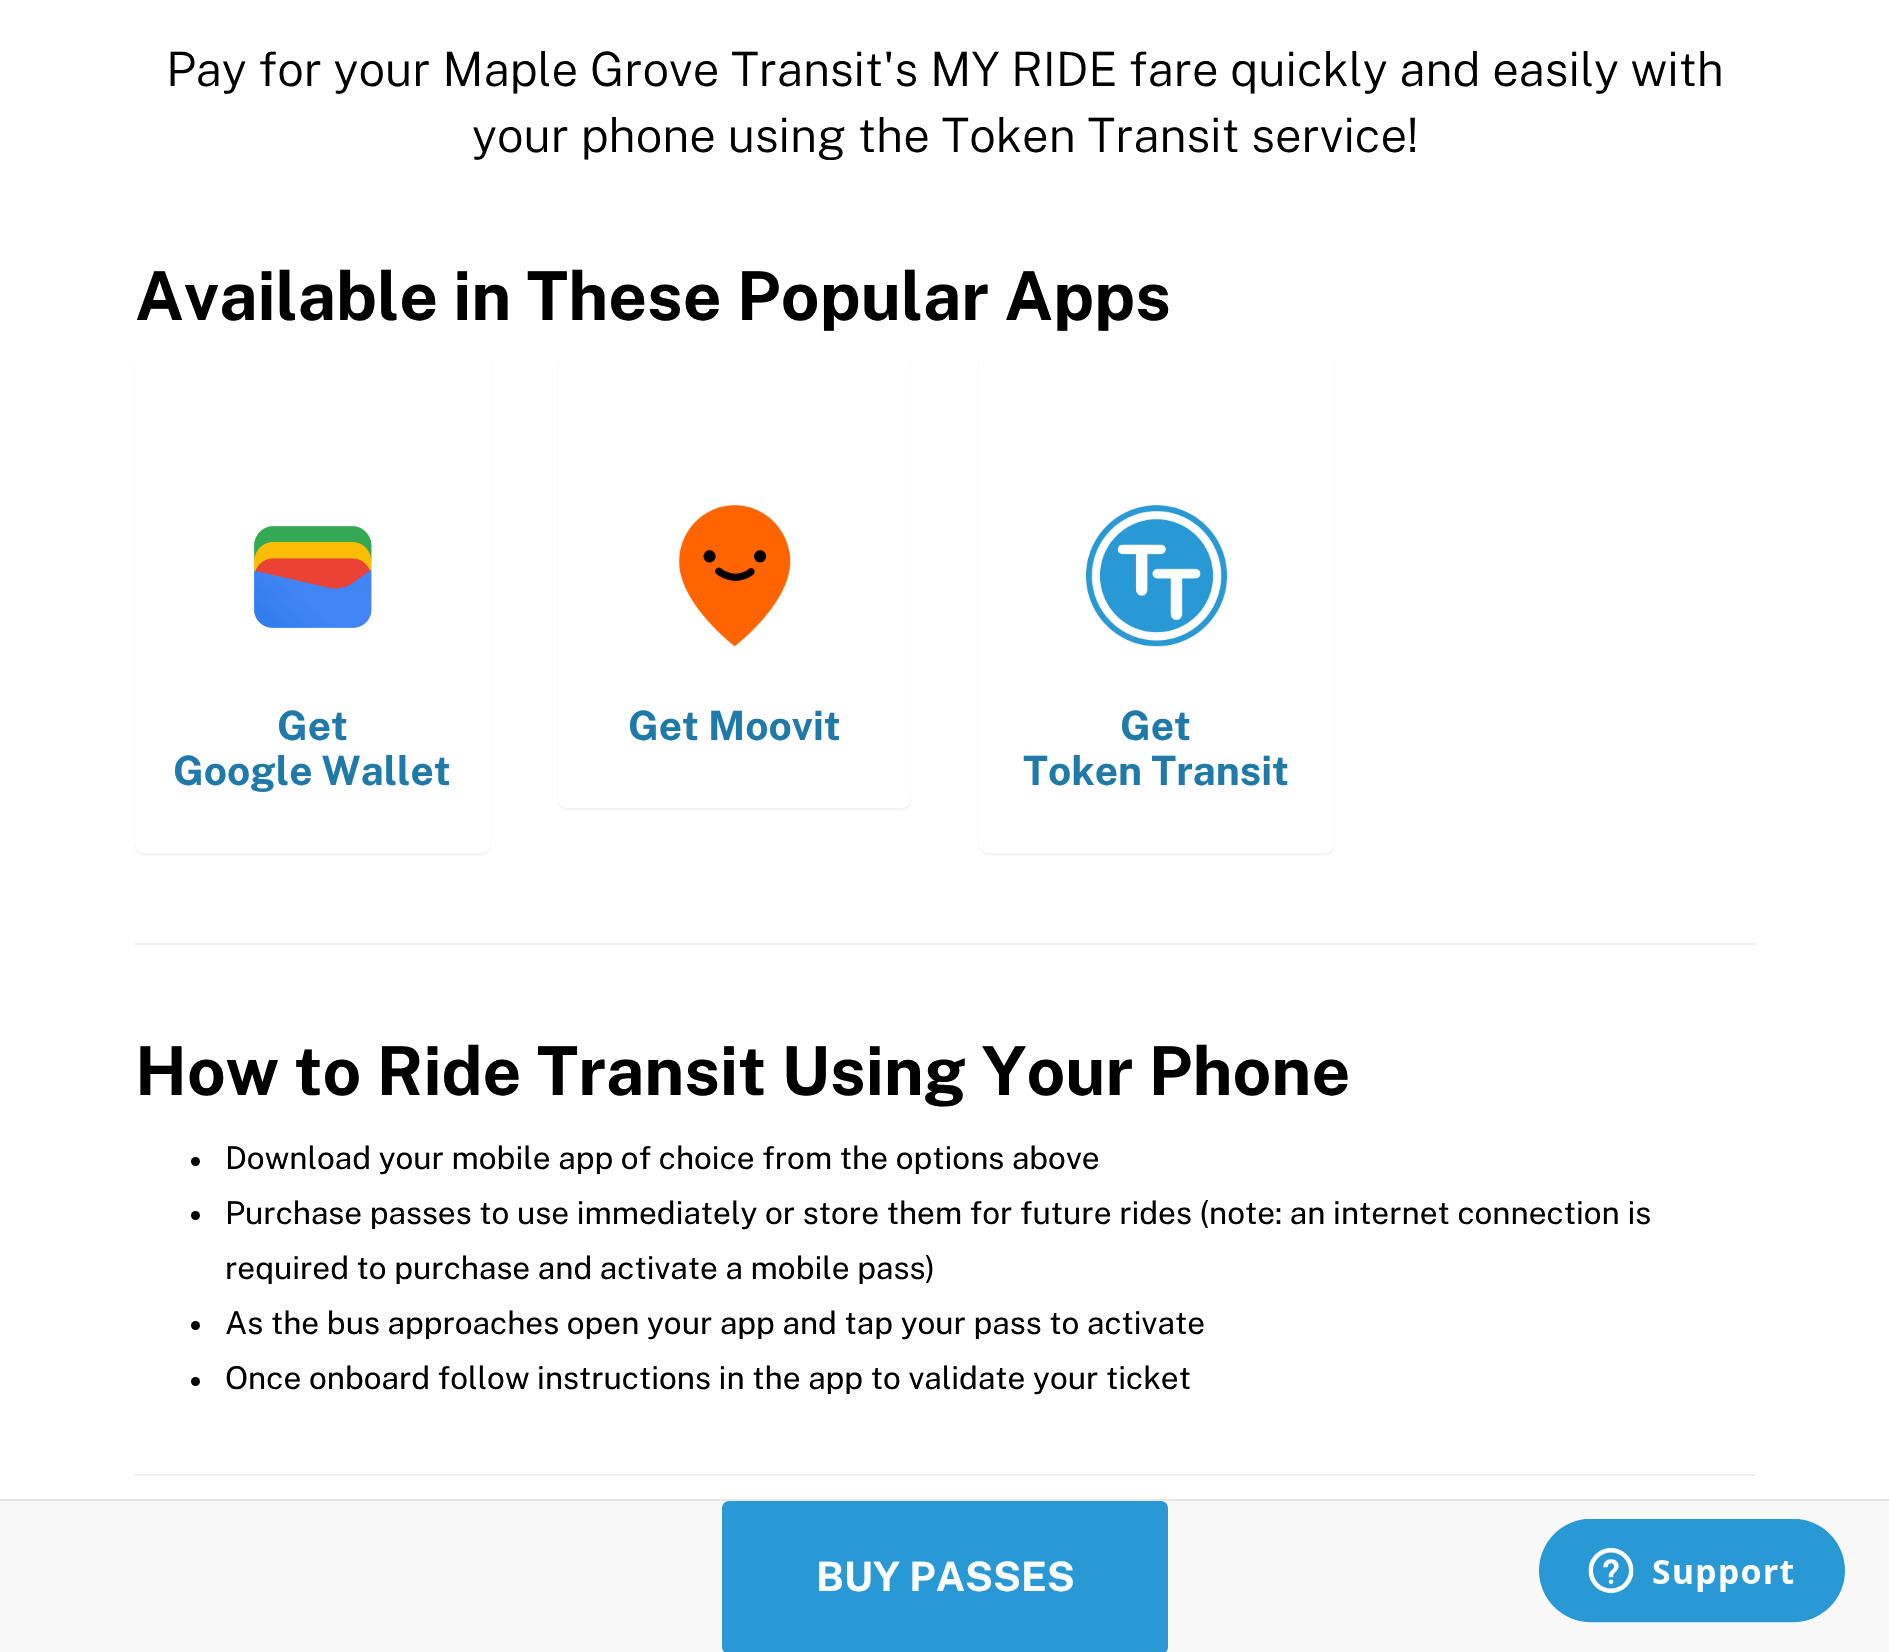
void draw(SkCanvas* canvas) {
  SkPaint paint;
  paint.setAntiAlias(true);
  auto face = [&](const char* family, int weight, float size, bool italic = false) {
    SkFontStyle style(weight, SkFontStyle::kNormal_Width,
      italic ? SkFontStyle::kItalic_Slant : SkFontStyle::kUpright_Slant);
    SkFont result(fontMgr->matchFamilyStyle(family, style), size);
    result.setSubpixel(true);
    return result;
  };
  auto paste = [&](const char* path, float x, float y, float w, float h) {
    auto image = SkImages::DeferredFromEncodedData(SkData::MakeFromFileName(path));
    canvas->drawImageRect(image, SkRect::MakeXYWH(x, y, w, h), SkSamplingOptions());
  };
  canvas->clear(0xffffffff);
  paint.setColor(0x0d000000);
  paint.setMaskFilter(SkMaskFilter::MakeBlur(kNormal_SkBlurStyle, 1));
  canvas->drawRoundRect(SkRect::MakeXYWH(135, 358, 356, 497), 9, 9, paint);
  paint.setMaskFilter(nullptr);
  paint.setColor(0xffffffff);
  canvas->drawRoundRect(SkRect::MakeXYWH(135, 356, 356, 497), 9, 9, paint);
  paste("img/1.png", 254, 526, 118, 102);
  paint.setColor(0x0d000000);
  paint.setMaskFilter(SkMaskFilter::MakeBlur(kNormal_SkBlurStyle, 1));
  canvas->drawRoundRect(SkRect::MakeXYWH(558, 358, 353, 452), 9, 9, paint);
  paint.setMaskFilter(nullptr);
  paint.setColor(0xffffffff);
  canvas->drawRoundRect(SkRect::MakeXYWH(558, 356, 353, 452), 9, 9, paint);
  paste("img/2.png", 679, 505, 112, 142);
  paint.setColor(0x0d000000);
  paint.setMaskFilter(SkMaskFilter::MakeBlur(kNormal_SkBlurStyle, 1));
  canvas->drawRoundRect(SkRect::MakeXYWH(979, 358, 355, 497), 9, 9, paint);
  paint.setMaskFilter(nullptr);
  paint.setColor(0xffffffff);
  canvas->drawRoundRect(SkRect::MakeXYWH(979, 356, 355, 497), 9, 9, paint);
  paste("img/3.png", 1086, 505, 141, 142);
  paint.setColor(0xffeeeeee);
  canvas->drawRect(SkRect::MakeXYWH(135, 943, 1620, 2), paint);
  paint.setColor(0xff000000);
  canvas->drawCircle(195.5f, 1161.5f, 4.5f, paint);
  canvas->drawCircle(195.5f, 1215.5f, 4.5f, paint);
  canvas->drawCircle(195.5f, 1325.5f, 4.5f, paint);
  canvas->drawCircle(195.5f, 1381.5f, 4.5f, paint);
  {
    const struct { float x, y, w, h; SkColor color; } items[] = {
      {135, 1474, 1620, 2, 0xffeeeeee},
      {0, 1501, 1889, 151, 0xfff8f8f8},
      {0, 1499, 1889, 2, 0xffe7e7e7},
    };
    for (auto [x, y, w, h, color] : items) {
      paint.setColor(color);
      canvas->drawRect(SkRect::MakeXYWH(x, y, w, h), paint);
    }
  }
  paint.setColor(0xff2899d4);
  canvas->drawRoundRect(SkRect::MakeXYWH(723, 1502, 444, 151), 6, 6, paint);
  paint.setStroke(true);
  paint.setStrokeWidth(2);
  canvas->drawRoundRect(SkRect::MakeXYWH(723, 1502, 444, 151), 6, 6, paint);
  paste("img/4.png", 1539, 1519, 306, 104);
  auto f0 = face("Public Sans", 300, 47.25f);
  paint.setStroke(false);
  paint.setColor(0xff000000);
  canvas->drawString("Pay for your Maple Grove Transit's MY RIDE fare quickly and easily with", 166, 86, f0, paint);
  canvas->drawString("your phone using the Token Transit service!", 472, 152, f0, paint);
  auto f1 = face("Public Sans", 700, 67.5f);
  canvas->drawString("Available in These Popular Apps", 135, 320, f1, paint);
  auto f2 = face("Public Sans", 700, 40.5f);
  paint.setColor(0xff207aa9);
  {
    const struct { const char* s; float x, y; } items[] = {
      {"Get", 277, 740},
      {"Google Wallet", 173, 785},
      {"Get Moovit", 628, 740},
      {"Get", 1120, 740},
      {"Token Transit", 1023, 785},
    };
    for (auto [s, x, y] : items) {
      canvas->drawString(s, x, y, f2, paint);
    }
  }
  paint.setColor(0xff000000);
  canvas->drawString("How to Ride Transit Using Your Phone", 135, 1095, f1, paint);
  auto f3 = face("Public Sans", 400, 31.5f);
  {
    const struct { const char* s; float x, y; } items[] = {
      {"Download your mobile app of choice from the options above", 225, 1169},
      {"Purchase passes to use immediately or store them for future rides (note: an internet connection is", 225, 1224},
      {"required to purchase and activate a mobile pass)", 225, 1279},
      {"As the bus approaches open your app and tap your pass to activate", 225, 1334},
      {"Once onboard follow instructions in the app to validate your ticket", 225, 1389},
    };
    for (auto [s, x, y] : items) {
      canvas->drawString(s, x, y, f3, paint);
    }
  }
  paint.setColor(0xffffffff);
  canvas->drawString("BUY PASSES", 816, 1591, f2, paint);
}
